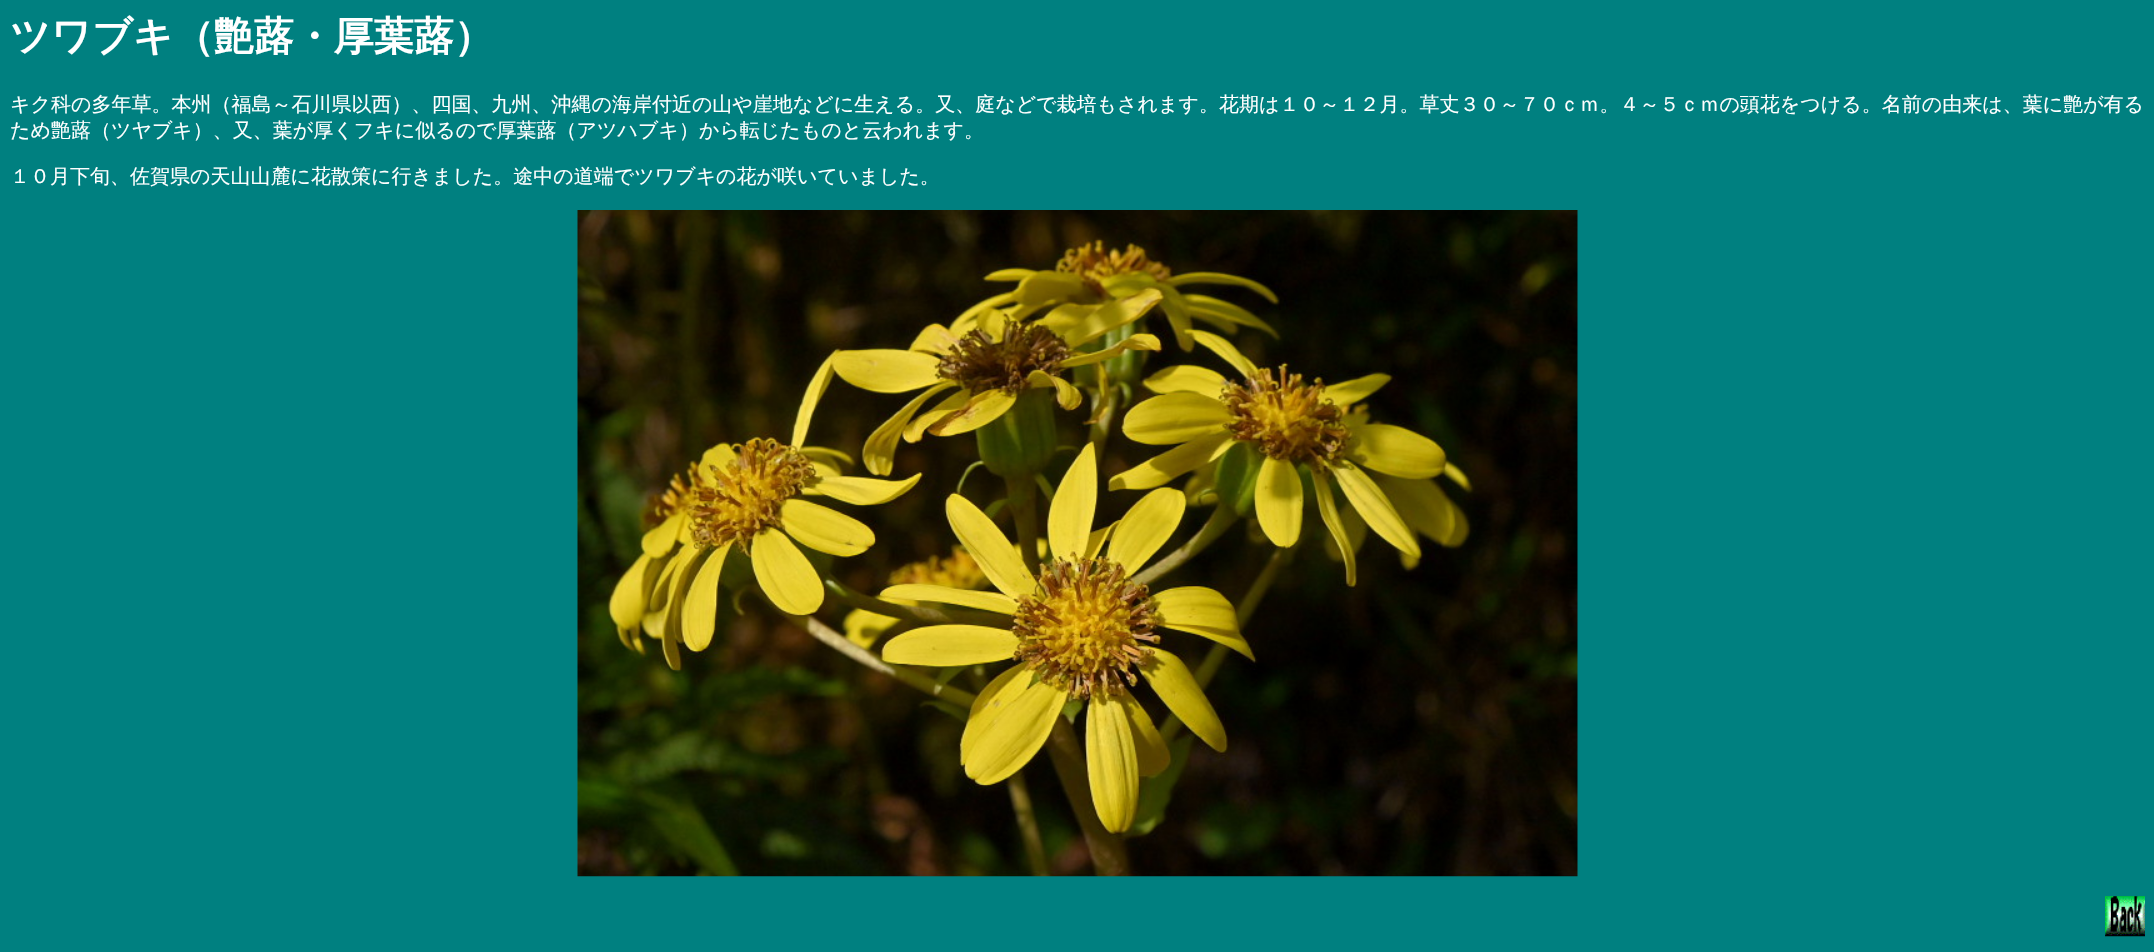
void draw(SkCanvas* canvas) {
  SkPaint paint;
  paint.setAntiAlias(true);
  auto face = [&](const char* family, int weight, float size, bool italic = false) {
    SkFontStyle style(weight, SkFontStyle::kNormal_Width,
      italic ? SkFontStyle::kItalic_Slant : SkFontStyle::kUpright_Slant);
    SkFont result(fontMgr->matchFamilyStyle(family, style), size);
    result.setSubpixel(true);
    return result;
  };
  auto paste = [&](const char* path, float x, float y, float w, float h) {
    auto image = SkImages::DeferredFromEncodedData(SkData::MakeFromFileName(path));
    canvas->drawImageRect(image, SkRect::MakeXYWH(x, y, w, h), SkSamplingOptions());
  };
  canvas->clear(0xff008080);
  paste("img/1.png", 577, 210, 1001, 667);
  paste("img/2.png", 2105, 896, 40, 41);
  auto f0 = face("WenQuanYi Zen Hei", 700, 40);
  paint.setColor(0xffffffff);
  canvas->drawString("ツワブキ（艶蕗・厚葉蕗）", 10, 50, f0, paint);
  auto f1 = face("WenQuanYi Zen Hei", 500, 20);
  {
    const struct { const char* s; float x, y; } items[] = {
      {"キク科の多年草。本州（福島～石川県以西）、四国、九州、沖縄の海岸付近の山や崖地などに生える。又、庭などで栽培もされます。花期は１０～１２月。草丈３０～７０ｃｍ。４～５ｃｍの頭花をつける。名前の由来は、葉に艶が有る", 10, 111},
      {"ため艶蕗（ツヤブキ）、又、葉が厚くフキに似るので厚葉蕗（アツハブキ）から転じたものと云われます。", 10, 137},
      {"１０月下旬、佐賀県の天山山麓に花散策に行きました。途中の道端でツワブキの花が咲いていました。", 10, 183},
    };
    for (auto [s, x, y] : items) {
      canvas->drawString(s, x, y, f1, paint);
    }
  }
}
